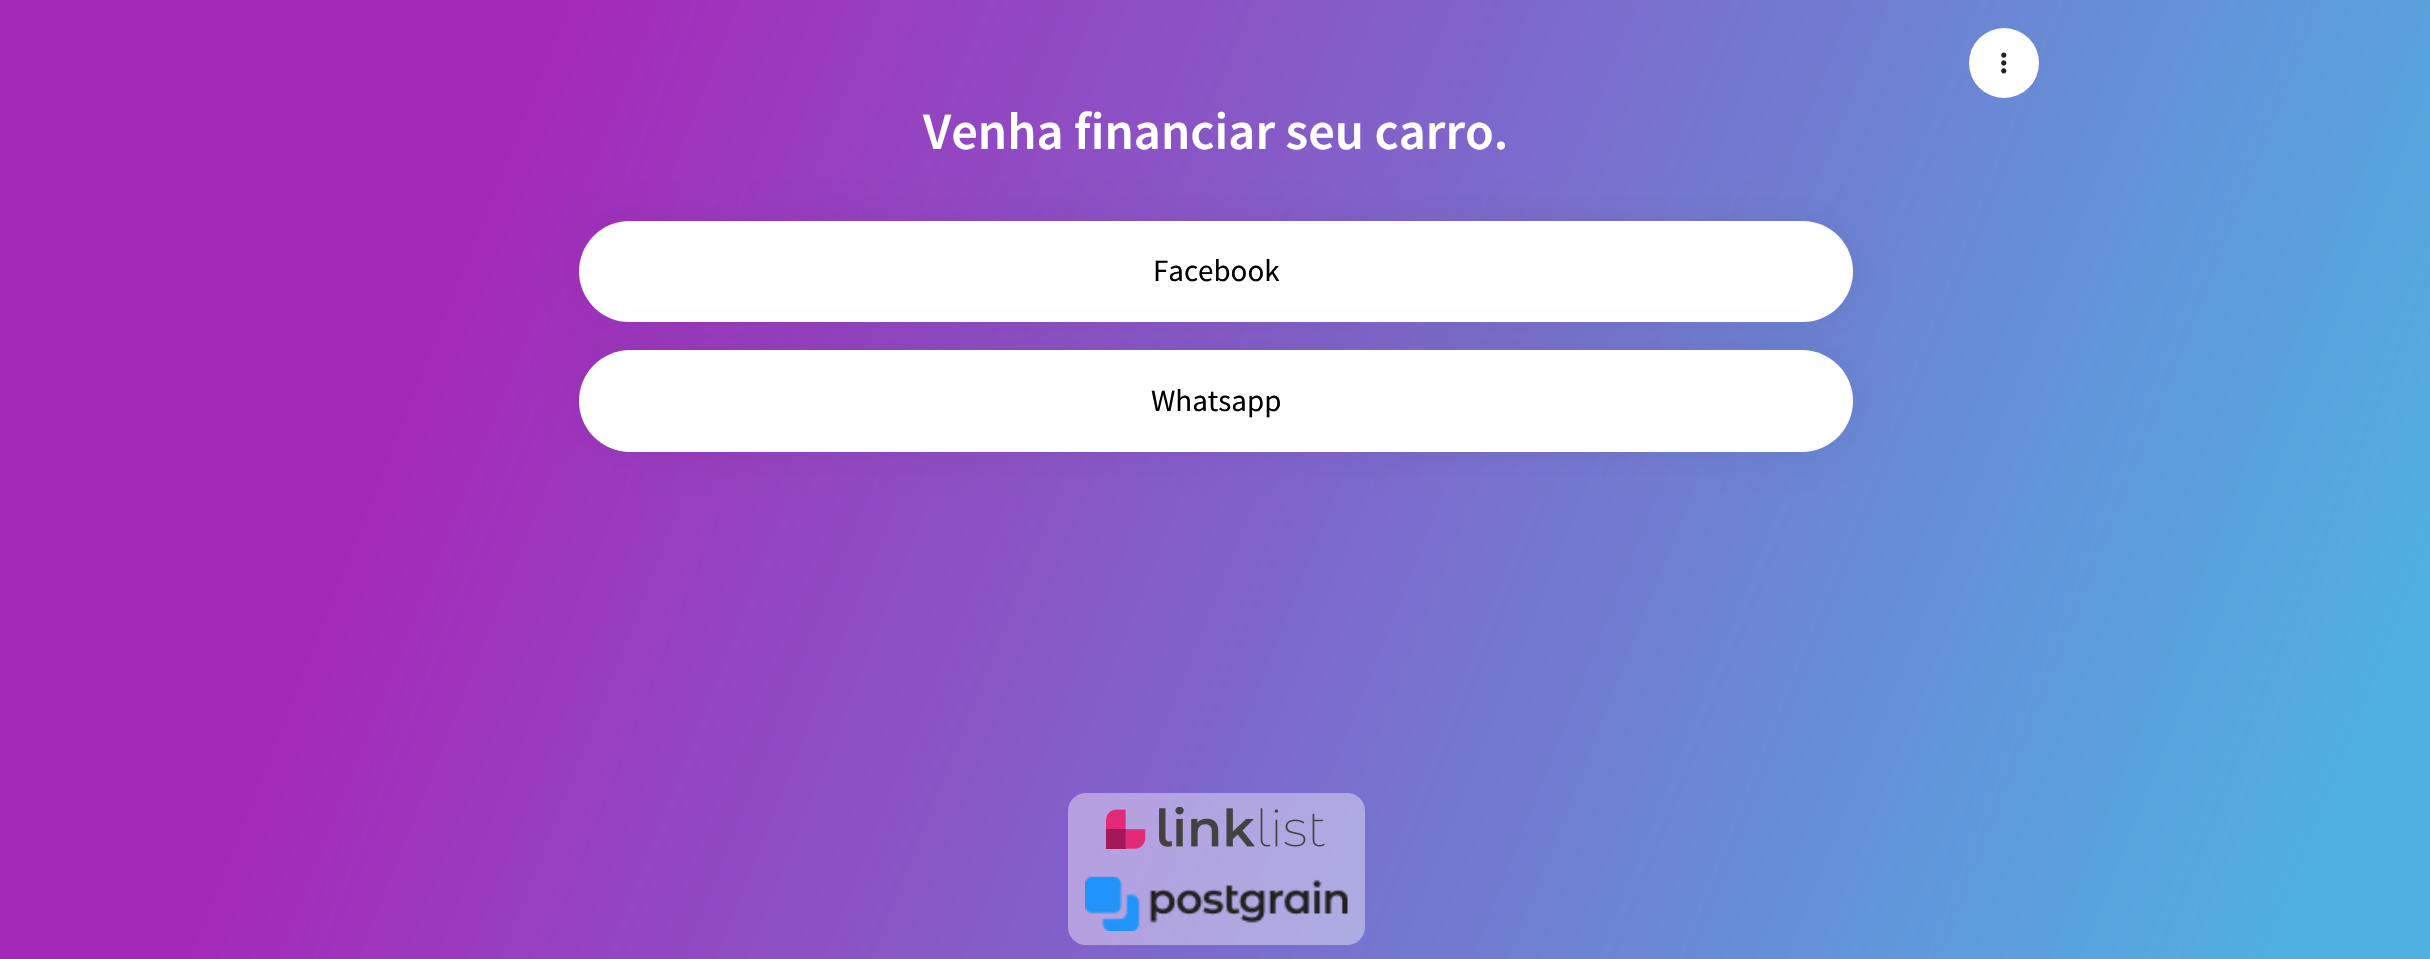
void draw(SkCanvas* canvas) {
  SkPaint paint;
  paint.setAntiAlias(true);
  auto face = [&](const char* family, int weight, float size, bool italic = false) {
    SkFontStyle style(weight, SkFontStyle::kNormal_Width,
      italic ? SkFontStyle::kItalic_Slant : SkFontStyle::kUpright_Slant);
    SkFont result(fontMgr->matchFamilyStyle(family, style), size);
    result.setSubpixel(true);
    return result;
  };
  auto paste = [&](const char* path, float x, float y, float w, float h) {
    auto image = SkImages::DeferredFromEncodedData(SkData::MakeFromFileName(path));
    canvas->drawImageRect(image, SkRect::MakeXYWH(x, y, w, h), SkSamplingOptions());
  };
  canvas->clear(0xffffffff);
  {
    const SkColor colors[] = {0xffa529b9, 0xff50b1e1};
    const float stops[] = {0.2f, 0.95f};
    const SkPoint ends[] = {{1.4f, -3.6f}, {2429, 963}};
    paint.setShader(SkGradientShader::MakeLinear(ends, colors, stops, 2, SkTileMode::kClamp));
    paint.setAlpha(255);
  }
  canvas->drawRect(SkRect::MakeXYWH(0, 0, 2430, 959), paint);
  paint.setShader(nullptr);
  paint.setColor(0xffffffff);
  canvas->drawCircle(2004, 63, 35, paint);
  paste("img/1.png", 2001, 52, 6, 22);
  paint.setColor(0x0f000000);
  paint.setMaskFilter(SkMaskFilter::MakeBlur(kNormal_SkBlurStyle, 17.5f));
  canvas->drawRoundRect(SkRect::MakeXYWH(579, 221, 1274, 101), 50.5f, 50.5f, paint);
  paint.setMaskFilter(nullptr);
  paint.setColor(0xffffffff);
  canvas->drawRoundRect(SkRect::MakeXYWH(579, 221, 1274, 101), 50.5f, 50.5f, paint);
  paint.setColor(0x0f000000);
  paint.setMaskFilter(SkMaskFilter::MakeBlur(kNormal_SkBlurStyle, 17.5f));
  canvas->drawRoundRect(SkRect::MakeXYWH(579, 350, 1274, 102), 51, 51, paint);
  paint.setMaskFilter(nullptr);
  paint.setColor(0xffffffff);
  canvas->drawRoundRect(SkRect::MakeXYWH(579, 350, 1274, 102), 51, 51, paint);
  paint.setColor(0x66ffffff);
  canvas->drawRoundRect(SkRect::MakeXYWH(1068, 793, 297, 152), 18, 18, paint);
  paste("img/2.png", 1106, 807, 219, 42);
  paste("img/3.png", 1085, 876, 263, 55);
  auto f0 = face("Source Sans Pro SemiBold", 600, 52.5f);
  paint.setColor(0xffffffff);
  canvas->drawString("Venha financiar seu carro.", 923, 149, f0, paint);
  auto f1 = face("Source Sans Pro", 400, 31);
  paint.setColor(0xff000000);
  canvas->drawString("Facebook", 1153, 281, f1, paint);
  canvas->drawString("Whatsapp", 1151, 411, f1, paint);
}
